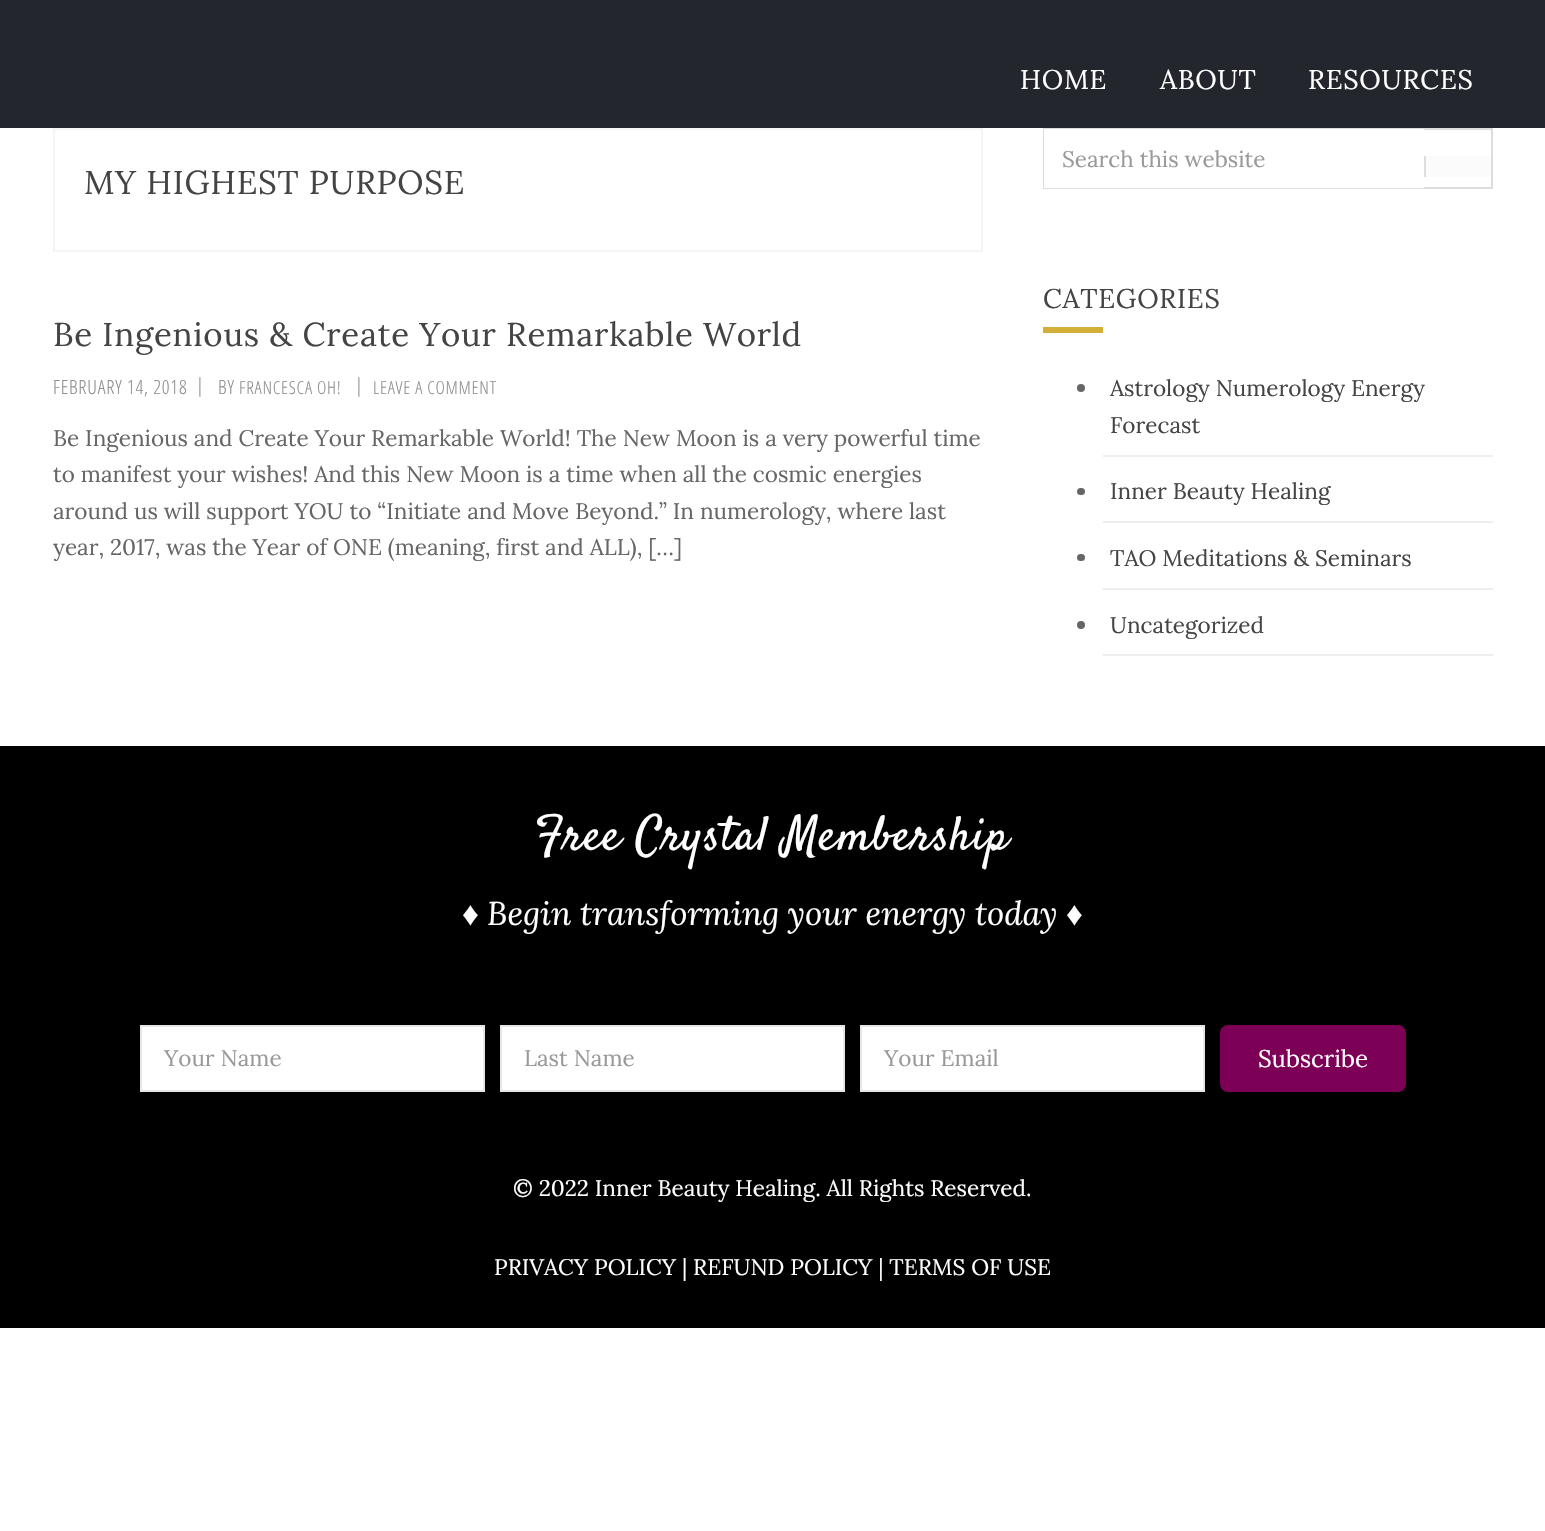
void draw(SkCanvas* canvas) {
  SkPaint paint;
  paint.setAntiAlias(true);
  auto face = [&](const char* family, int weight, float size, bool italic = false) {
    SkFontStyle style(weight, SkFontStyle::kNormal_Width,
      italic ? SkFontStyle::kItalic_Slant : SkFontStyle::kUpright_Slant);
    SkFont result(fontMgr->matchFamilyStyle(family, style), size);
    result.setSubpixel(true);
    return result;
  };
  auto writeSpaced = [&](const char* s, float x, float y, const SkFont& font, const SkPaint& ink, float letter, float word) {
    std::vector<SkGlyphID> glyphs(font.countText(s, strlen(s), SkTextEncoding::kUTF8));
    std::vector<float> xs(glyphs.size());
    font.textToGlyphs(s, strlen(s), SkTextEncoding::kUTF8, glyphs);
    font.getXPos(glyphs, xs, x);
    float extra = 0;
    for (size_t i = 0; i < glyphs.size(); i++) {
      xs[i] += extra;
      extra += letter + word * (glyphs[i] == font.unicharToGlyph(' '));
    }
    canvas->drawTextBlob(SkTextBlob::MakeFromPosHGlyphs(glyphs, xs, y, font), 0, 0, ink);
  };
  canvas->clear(0xffffffff);
  paint.setColor(0xff23272d);
  canvas->drawRect(SkRect::MakeXYWH(0, 0, 1545, 128), paint);
  paint.setStroke(true);
  paint.setStrokeWidth(2);
  paint.setColor(0xfff5f5f5);
  canvas->drawRect(SkRect::MakeXYWH(54, 129, 928, 122), paint);
  paint.setColor(0xffdddddd);
  canvas->drawRect(SkRect::MakeXYWH(1044, 129, 448, 59), paint);
  paint.setStroke(false);
  {
    const struct { float x, y, w, h; SkColor color; } items[] = {
      {1044, 129, 380, 59, 0xffffffff},
      {1426, 156, 65, 21, 0xfffbfbfb},
      {1424, 156, 2, 21, 0xffdddddd},
      {1043, 327, 60, 6, 0xffd4af37},
      {1103, 455, 390, 2, 0xffeeeeee},
    };
    for (auto [x, y, w, h, color] : items) {
      paint.setColor(color);
      canvas->drawRect(SkRect::MakeXYWH(x, y, w, h), paint);
    }
  }
  paint.setColor(0xff666666);
  canvas->drawCircle(1081, 388, 4, paint);
  paint.setColor(0xffeeeeee);
  canvas->drawRect(SkRect::MakeXYWH(1103, 521, 390, 2), paint);
  paint.setColor(0xff666666);
  canvas->drawRoundRect(SkRect::MakeXYWH(1077, 488, 8, 7), 3.5f, 3.5f, paint);
  paint.setColor(0xffeeeeee);
  canvas->drawRect(SkRect::MakeXYWH(1103, 588, 390, 2), paint);
  paint.setColor(0xff666666);
  canvas->drawRoundRect(SkRect::MakeXYWH(1077, 554, 8, 7), 3.5f, 3.5f, paint);
  paint.setColor(0xffeeeeee);
  canvas->drawRect(SkRect::MakeXYWH(1103, 654, 390, 2), paint);
  paint.setColor(0xff666666);
  canvas->drawCircle(1081, 625, 4, paint);
  paint.setColor(0xff000000);
  canvas->drawRect(SkRect::MakeXYWH(0, 746, 1545, 582), paint);
  paint.setColor(0xffffffff);
  canvas->drawRect(SkRect::MakeXYWH(141, 1026, 343, 65), paint);
  paint.setStroke(true);
  paint.setColor(0xffe6e6e6);
  canvas->drawRect(SkRect::MakeXYWH(141, 1026, 343, 65), paint);
  paint.setStroke(false);
  paint.setColor(0xffffffff);
  canvas->drawRect(SkRect::MakeXYWH(501, 1026, 343, 65), paint);
  paint.setStroke(true);
  paint.setColor(0xffe6e6e6);
  canvas->drawRect(SkRect::MakeXYWH(501, 1026, 343, 65), paint);
  paint.setStroke(false);
  paint.setColor(0xffffffff);
  canvas->drawRect(SkRect::MakeXYWH(861, 1026, 343, 65), paint);
  paint.setStroke(true);
  paint.setColor(0xffe6e6e6);
  canvas->drawRect(SkRect::MakeXYWH(861, 1026, 343, 65), paint);
  paint.setStroke(false);
  paint.setColor(0xff7c0055);
  canvas->drawRoundRect(SkRect::MakeXYWH(1221, 1026, 184, 65), 7, 7, paint);
  paint.setStroke(true);
  canvas->drawRoundRect(SkRect::MakeXYWH(1221, 1026, 184, 65), 7, 7, paint);
  auto f0 = face("Lora", 400, 27);
  paint.setStroke(false);
  paint.setColor(0xffffffff);
  {
    const struct { const char* s; float x, y; } items[] = {
      {"HOME", 1020, 89},
      {"ABOUT", 1160, 89},
      {"RESOURCES", 1308, 89},
    };
    for (auto [s, x, y] : items) {
      writeSpaced(s, x, y, f0, paint, 0.75f, 0);
    }
  }
  auto f1 = face("Lora", 400, 33);
  paint.setColor(0xff444444);
  writeSpaced("MY HIGHEST PURPOSE", 84, 194, f1, paint, 0.75f, 0);
  writeSpaced("Be Ingenious & Create Your Remarkable World", 53, 346, f1, paint, 0.75f, 0);
  auto f2 = face("Open Sans Condensed", 300, 19.5f);
  paint.setColor(0xff8e8e8e);
  {
    const struct { const char* s; float x, y; } items[] = {
      {"FEBRUARY 14, 2018", 53, 394},
      {"|", 196, 392},
      {"BY", 218, 394},
    };
    for (auto [s, x, y] : items) {
      writeSpaced(s, x, y, f2, paint, 0.75f, 0);
    }
  }
  auto f3 = face("Open Sans Condensed", 300, 18);
  writeSpaced("FRANCESCA OH!", 239, 394, f3, paint, 0.75f, 0);
  writeSpaced("|", 355, 392, f2, paint, 0.75f, 0);
  writeSpaced("LEAVE A COMMENT", 373, 394, f3, paint, 0.75f, 0);
  auto f4 = face("Lora", 400, 22.5f);
  paint.setColor(0xff666666);
  {
    const struct { const char* s; float x, y; } items[] = {
      {"Be Ingenious and Create Your Remarkable World! The New Moon is a very powerful time", 53, 446},
      {"to manifest your wishes! And this New Moon is a time when all the cosmic energies", 53, 482},
      {"around us will support YOU to “Initiate and Move Beyond.” In numerology, where last", 53, 519},
      {"year, 2017, was the Year of ONE (meaning, first and ALL), […]", 53, 555},
    };
    for (auto [s, x, y] : items) {
      canvas->drawString(s, x, y, f4, paint);
    }
  }
  paint.setColor(0xff999999);
  canvas->drawString("Search this website", 1062, 167, f4, paint);
  paint.setColor(0xff444444);
  writeSpaced("CATEGORIES", 1043, 308, f0, paint, 0.75f, 0);
  {
    const struct { const char* s; float x, y; } items[] = {
      {"Astrology Numerology Energy", 1110, 396},
      {"Forecast", 1110, 433},
      {"Inner Beauty Healing", 1110, 499},
      {"TAO Meditations & Seminars", 1110, 566},
      {"Uncategorized", 1110, 633},
    };
    for (auto [s, x, y] : items) {
      canvas->drawString(s, x, y, f4, paint);
    }
  }
  auto f5 = face("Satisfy", 400, 48);
  paint.setColor(0xffffffff);
  writeSpaced("Free Crystal Membership", 535, 849, f5, paint, 0.75f, 0);
  auto f6 = face("Liberation Serif", 400, 33, true);
  canvas->drawString("♦", 462, 925, f6, paint);
  auto f7 = face("Lora", 400, 33, true);
  canvas->drawString("Begin transforming your energy today", 487, 925, f7, paint);
  canvas->drawString("♦", 1066, 925, f6, paint);
  paint.setColor(0xff999999);
  {
    const struct { const char* s; float x, y; } items[] = {
      {"Your Name", 164, 1066},
      {"Last Name", 524, 1066},
      {"Your Email", 884, 1066},
    };
    for (auto [s, x, y] : items) {
      canvas->drawString(s, x, y, f4, paint);
    }
  }
  auto f8 = face("Lora", 400, 24);
  paint.setColor(0xffffffff);
  canvas->drawString("Subscribe", 1258, 1067, f8, paint);
  canvas->drawString("© 2022 Inner Beauty Healing. All Rights Reserved.", 513, 1196, f4, paint);
  canvas->drawString("PRIVACY POLICY | REFUND POLICY | TERMS OF USE", 494, 1275, f4, paint);
}
